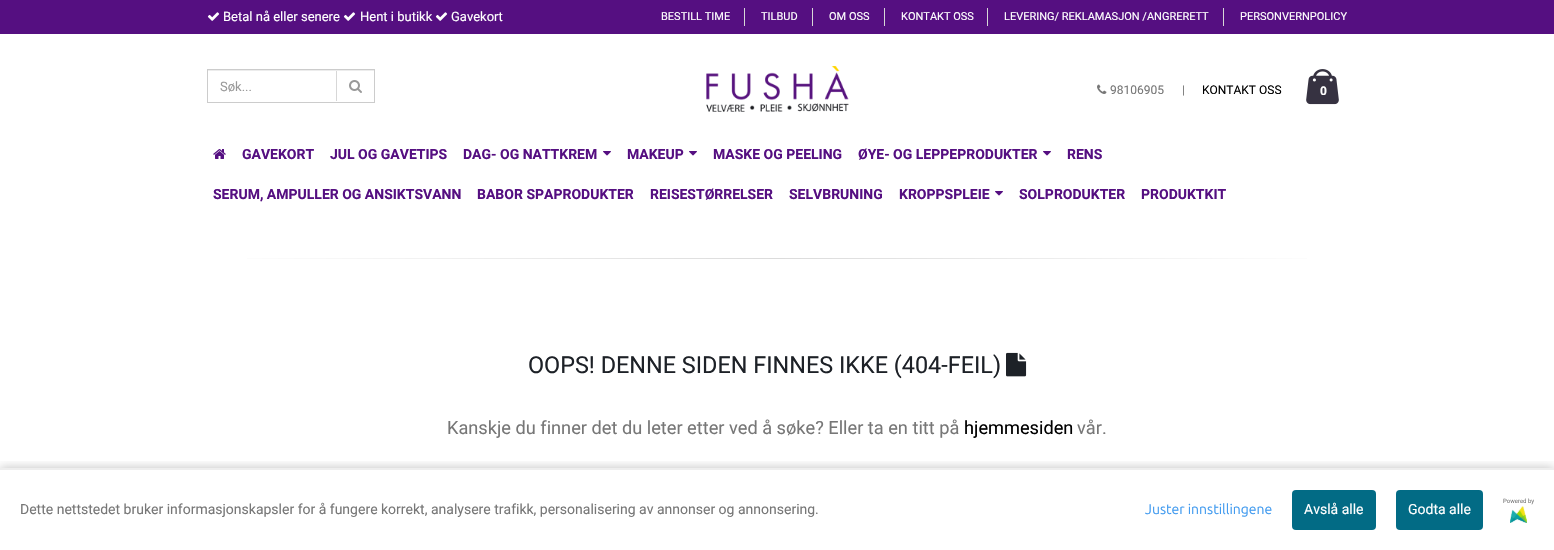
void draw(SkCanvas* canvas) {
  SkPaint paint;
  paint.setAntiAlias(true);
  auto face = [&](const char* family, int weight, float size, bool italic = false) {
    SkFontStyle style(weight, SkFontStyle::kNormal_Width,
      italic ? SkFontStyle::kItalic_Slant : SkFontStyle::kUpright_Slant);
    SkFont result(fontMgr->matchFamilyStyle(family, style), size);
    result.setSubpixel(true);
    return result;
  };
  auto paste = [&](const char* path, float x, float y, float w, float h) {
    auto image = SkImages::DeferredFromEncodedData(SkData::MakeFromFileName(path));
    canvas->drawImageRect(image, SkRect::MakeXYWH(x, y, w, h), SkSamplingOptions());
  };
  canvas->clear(0xffffffff);
  paint.setColor(0xff550f81);
  canvas->drawRect(SkRect::MakeXYWH(0, 0, 1554, 34), paint);
  paste("img/1.png", 207, 12, 13, 9);
  paste("img/1.png", 343, 12, 13, 9);
  paste("img/1.png", 435, 12, 13, 9);
  {
    const struct { float x, y, w, h; SkColor color; } items[] = {
      {744, 8, 1, 18, 0xffd7d7d7},
      {812, 8, 1, 18, 0xffd7d7d7},
      {884, 8, 1, 18, 0xffd7d7d7},
      {987, 8, 1, 18, 0xffd7d7d7},
      {1223, 8, 1, 18, 0xffd7d7d7},
      {208, 70, 166, 1, 0xffececec},
    };
    for (auto [x, y, w, h, color] : items) {
      paint.setColor(color);
      canvas->drawRect(SkRect::MakeXYWH(x, y, w, h), paint);
    }
  }
  paint.setStroke(true);
  paint.setStrokeWidth(1);
  paint.setColor(0xffcccccc);
  canvas->drawRect(SkRect::MakeXYWH(207.5f, 69.5f, 167, 33), paint);
  paint.setStroke(false);
  paint.setColor(0xffd7d7d7);
  canvas->drawRect(SkRect::MakeXYWH(336, 71, 1, 30), paint);
  paste("img/2.png", 349, 80, 13, 13);
  paste("img/3.png", 706, 66, 143, 46);
  paste("img/4.png", 1097, 84, 10, 10);
  paste("img/5.png", 1306, 69, 33, 36);
  paste("img/6.png", 213, 149, 13, 10);
  paste("img/7.png", 603, 151, 8, 5);
  paste("img/7.png", 689, 151, 8, 5);
  paste("img/7.png", 1043, 151, 8, 5);
  paste("img/7.png", 995, 191, 8, 5);
  {
    const SkColor colors[] = {0xffffffff, 0xffdbdbdb, 0xffffffff};
    const float stops[] = {0, 0.5f, 1};
    const SkPoint ends[] = {{207, 259}, {1347, 258}};
    paint.setShader(SkGradientShader::MakeLinear(ends, colors, stops, 3, SkTileMode::kClamp));
    paint.setAlpha(255);
  }
  canvas->drawRect(SkRect::MakeXYWH(247, 258, 1060, 1), paint);
  paste("img/8.png", 1006, 352, 21, 25);
  canvas->save();
  canvas->clipRect(SkRect::MakeXYWH(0, 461, 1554, 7));
  paint.setShader(nullptr);
  paint.setColor(0x40000000);
  paint.setMaskFilter(SkMaskFilter::MakeBlur(kNormal_SkBlurStyle, 5));
  canvas->drawRect(SkRect::MakeXYWH(0, 468, 1554, 82), paint);
  paint.setMaskFilter(nullptr);
  canvas->restore();
  paint.setColor(0xffeeeeee);
  canvas->drawRect(SkRect::MakeXYWH(0, 468, 1554, 2), paint);
  paint.setColor(0xff026b85);
  canvas->drawRoundRect(SkRect::MakeXYWH(1292, 490, 84, 40), 4, 4, paint);
  canvas->drawRoundRect(SkRect::MakeXYWH(1396, 490, 87, 40), 4, 4, paint);
  paste("img/9.png", 1510, 506, 17, 17);
  auto f0 = face("Roboto", 400, 13);
  paint.setColor(0xffffffff);
  {
    const struct { const char* s; float x, y; } items[] = {
      {"Betal nå eller senere", 223, 21},
      {"Hent i butikk", 360, 21},
      {"Gavekort", 451, 21},
    };
    for (auto [s, x, y] : items) {
      canvas->drawString(s, x, y, f0, paint);
    }
  }
  auto f1 = face("Roboto", 400, 11);
  {
    const struct { const char* s; float x, y; } items[] = {
      {"BESTILL TIME", 661, 20},
      {"TILBUD", 761, 20},
      {"OM OSS", 829, 20},
      {"KONTAKT OSS", 901, 20},
      {"LEVERING/ REKLAMASJON /ANGRERETT", 1004, 20},
      {"PERSONVERNPOLICY", 1240, 20},
    };
    for (auto [s, x, y] : items) {
      canvas->drawString(s, x, y, f1, paint);
    }
  }
  paint.setColor(0xff999999);
  canvas->drawString("Søk...", 220, 91, f0, paint);
  auto f2 = face("Roboto", 400, 12);
  paint.setColor(0xff777777);
  canvas->drawString("98106905", 1110, 94, f2, paint);
  canvas->drawString("|", 1182, 94, f2, paint);
  paint.setColor(0xff000000);
  canvas->drawString("KONTAKT OSS", 1202, 94, f2, paint);
  auto f3 = face("Roboto", 700, 12);
  paint.setColor(0xffffffff);
  canvas->drawString("0", 1320, 95, f3, paint);
  auto f4 = face("Roboto", 700, 14);
  paint.setColor(0xff550f81);
  {
    const struct { const char* s; float x, y; } items[] = {
      {"GAVEKORT", 242, 159},
      {"JUL OG GAVETIPS", 330, 159},
      {"DAG- OG NATTKREM", 463, 159},
      {"MAKEUP", 627, 159},
      {"MASKE OG PEELING", 713, 159},
      {"ØYE- OG LEPPEPRODUKTER", 858, 159},
      {"RENS", 1067, 159},
      {"SERUM, AMPULLER OG ANSIKTSVANN", 213, 199},
      {"BABOR SPAPRODUKTER", 477, 199},
      {"REISESTØRRELSER", 650, 199},
      {"SELVBRUNING", 789, 199},
      {"KROPPSPLEIE", 899, 199},
      {"SOLPRODUKTER", 1019, 199},
      {"PRODUKTKIT", 1141, 199},
    };
    for (auto [s, x, y] : items) {
      canvas->drawString(s, x, y, f4, paint);
    }
  }
  auto f5 = face("Roboto", 400, 23.4f);
  paint.setColor(0xff1d2127);
  canvas->drawString("OOPS! DENNE SIDEN FINNES IKKE (404-FEIL)", 528, 373, f5, paint);
  auto f6 = face("Roboto", 400, 18.2f);
  paint.setColor(0xff777777);
  canvas->drawString("Kanskje du finner det du leter etter ved å søke? Eller ta en titt på", 447, 434, f6, paint);
  paint.setColor(0xff000000);
  canvas->drawString("hjemmesiden", 964, 434, f6, paint);
  paint.setColor(0xff777777);
  canvas->drawString("vår.", 1077, 434, f6, paint);
  auto f7 = face("Roboto", 400, 14);
  canvas->drawString("Dette nettstedet bruker informasjonskapsler for å fungere korrekt, analysere trafikk, personalisering av annonser og annonsering.", 20, 514, f7, paint);
  auto f8 = face("Ubuntu", 400, 14);
  paint.setColor(0xff409aef);
  canvas->drawString("Juster innstillingene", 1145, 514, f8, paint);
  paint.setColor(0xffffffff);
  canvas->drawString("Avslå alle", 1304, 514, f7, paint);
  canvas->drawString("Godta alle", 1408, 514, f7, paint);
  auto f9 = face("Roboto", 400, 6);
  paint.setColor(0xff777777);
  canvas->drawString("Powered by", 1503, 503, f9, paint);
}
